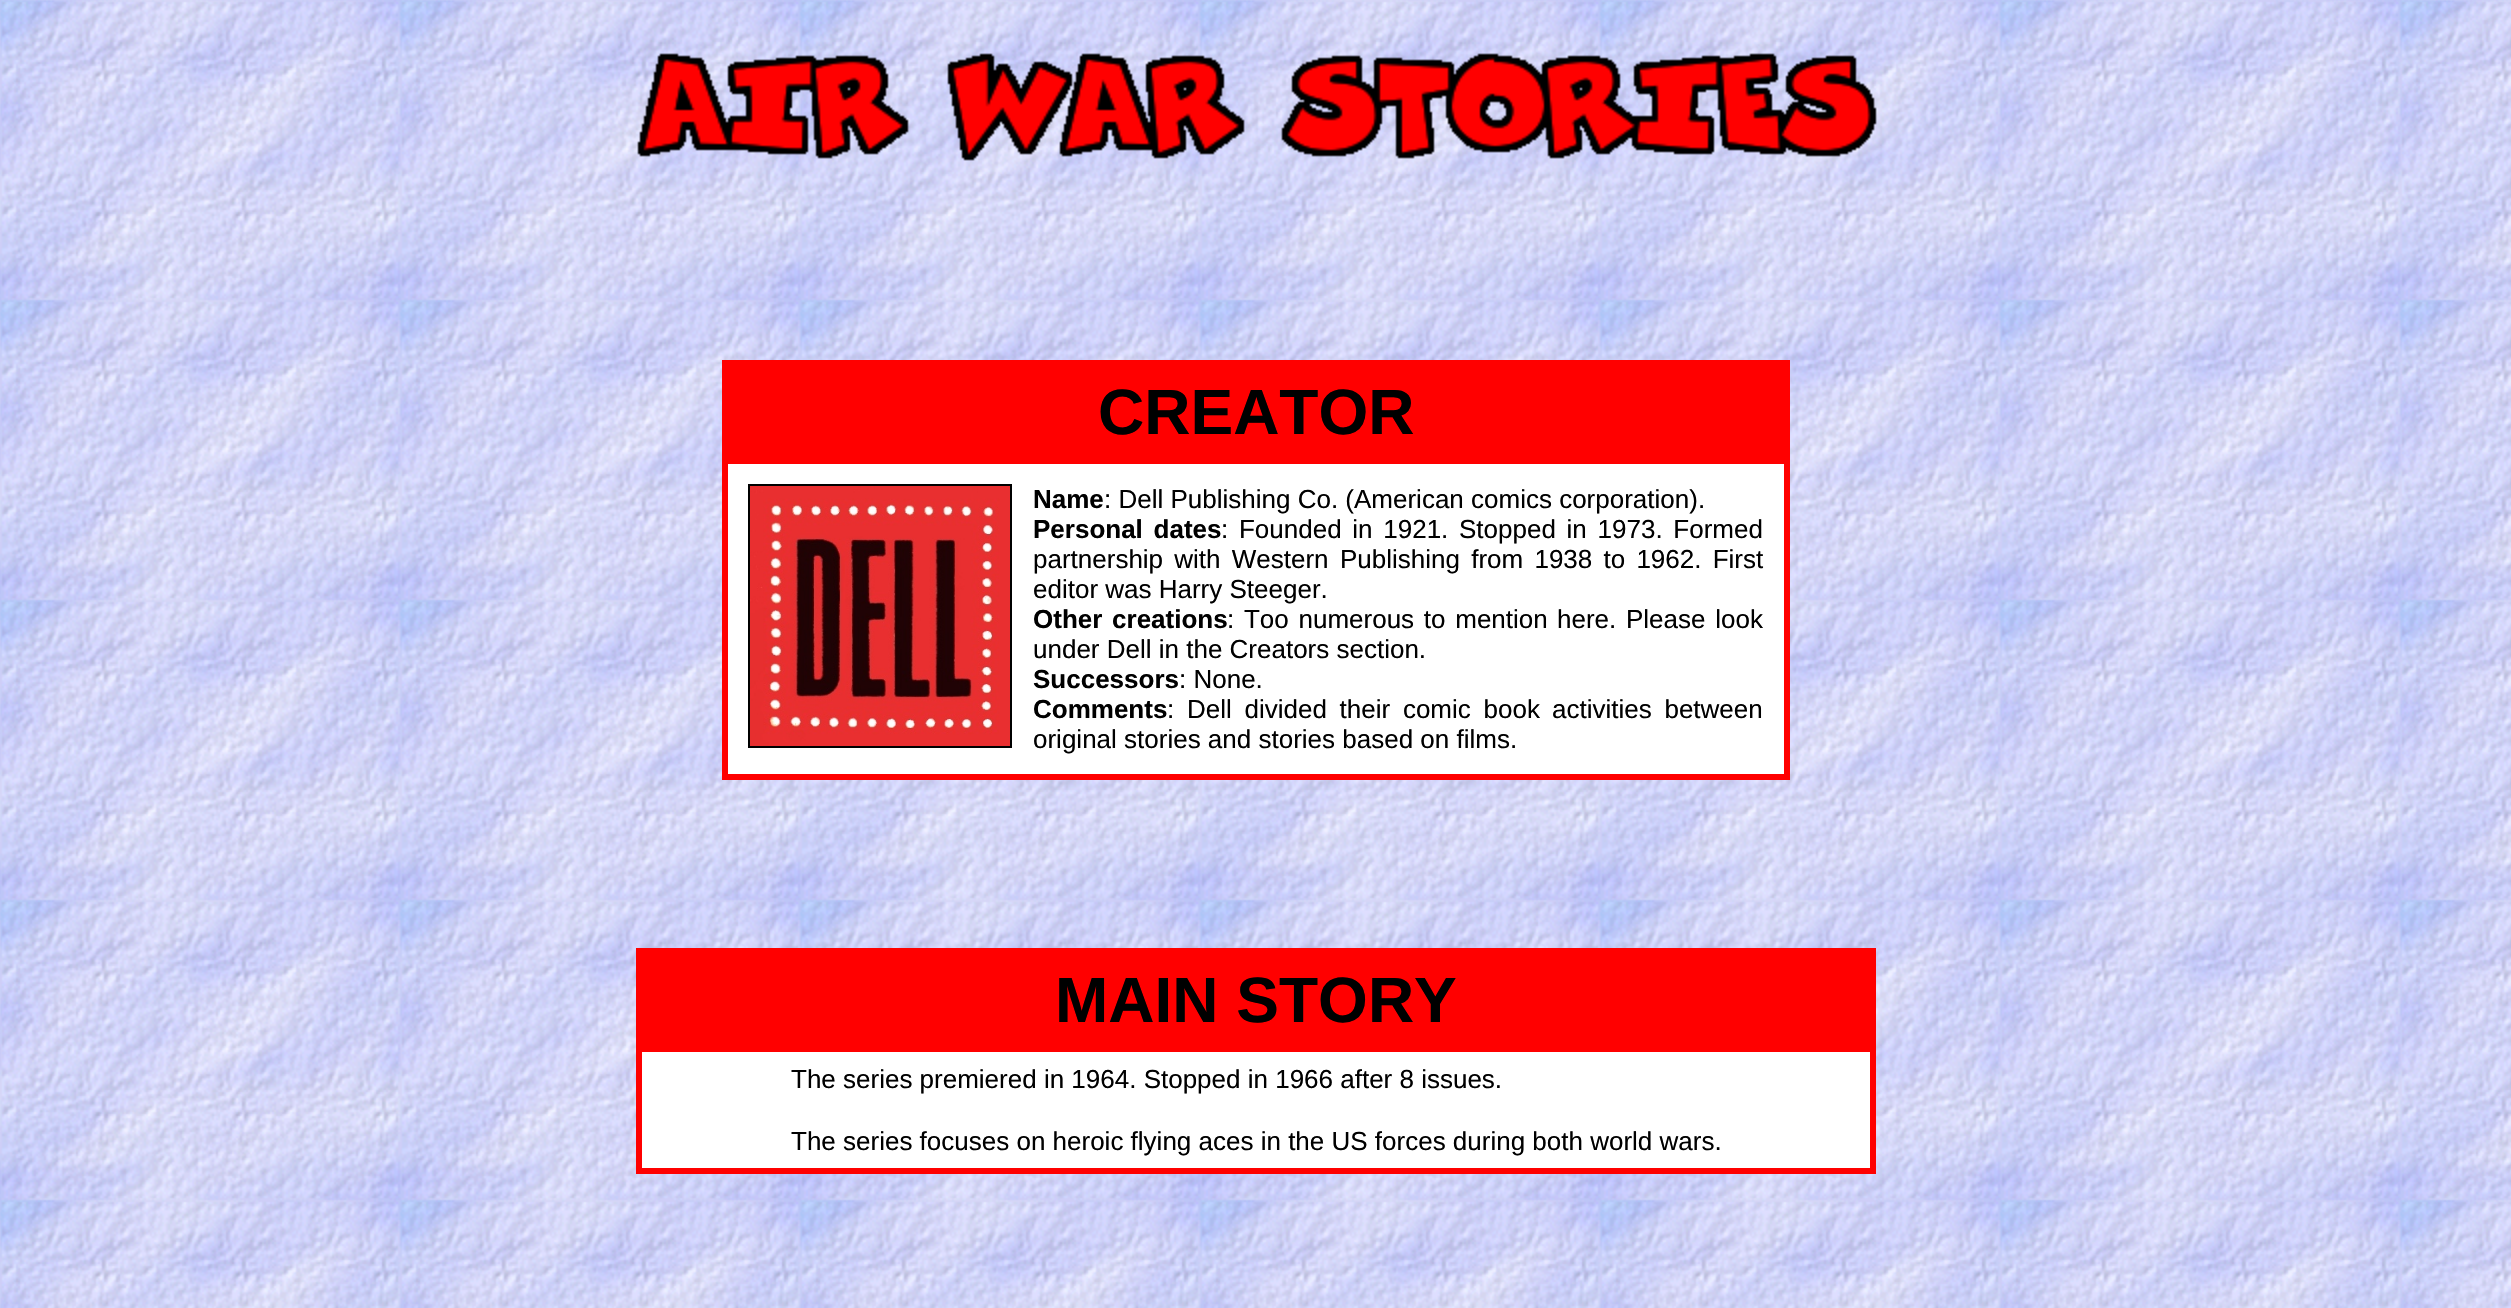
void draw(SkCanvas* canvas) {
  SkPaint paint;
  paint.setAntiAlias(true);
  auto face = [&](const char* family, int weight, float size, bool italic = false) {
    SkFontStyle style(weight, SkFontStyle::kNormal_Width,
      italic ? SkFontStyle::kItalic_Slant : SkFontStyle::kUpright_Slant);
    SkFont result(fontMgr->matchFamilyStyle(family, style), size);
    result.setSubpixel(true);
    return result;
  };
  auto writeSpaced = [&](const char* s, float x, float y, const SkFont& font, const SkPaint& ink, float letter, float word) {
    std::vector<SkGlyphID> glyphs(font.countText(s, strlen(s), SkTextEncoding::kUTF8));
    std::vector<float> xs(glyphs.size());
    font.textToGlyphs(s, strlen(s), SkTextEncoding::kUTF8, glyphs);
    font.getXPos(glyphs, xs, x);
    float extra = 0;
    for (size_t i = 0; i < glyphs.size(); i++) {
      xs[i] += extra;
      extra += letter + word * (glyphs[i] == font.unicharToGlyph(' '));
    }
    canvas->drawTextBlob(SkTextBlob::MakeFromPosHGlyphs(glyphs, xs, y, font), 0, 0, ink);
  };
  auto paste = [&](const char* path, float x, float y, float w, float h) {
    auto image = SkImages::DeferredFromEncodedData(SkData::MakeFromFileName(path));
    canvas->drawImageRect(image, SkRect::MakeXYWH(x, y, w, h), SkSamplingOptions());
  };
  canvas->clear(0xffffffff);
  paste("img/1.png", 0, 0, 2511, 1308);
  paste("img/2.png", 637, 53, 1240, 108);
  paint.setStroke(true);
  paint.setStrokeWidth(4);
  paint.setColor(0xffff0000);
  canvas->drawRect(SkRect::MakeXYWH(724, 362, 1064, 416), paint);
  paint.setStroke(false);
  canvas->drawRect(SkRect::MakeXYWH(726, 364, 1060, 98), paint);
  paint.setColor(0xffffffff);
  canvas->drawRect(SkRect::MakeXYWH(727, 463, 1058, 312), paint);
  paint.setStroke(true);
  paint.setStrokeWidth(2);
  paint.setColor(0xffff0000);
  canvas->drawRect(SkRect::MakeXYWH(727, 463, 1058, 312), paint);
  paint.setColor(0xff000000);
  canvas->drawRect(SkRect::MakeXYWH(749, 485, 262, 262), paint);
  paste("img/3.png", 750, 486, 260, 260);
  paint.setStrokeWidth(4);
  paint.setColor(0xffff0000);
  canvas->drawRect(SkRect::MakeXYWH(638, 950, 1236, 222), paint);
  paint.setStroke(false);
  canvas->drawRect(SkRect::MakeXYWH(640, 952, 1232, 98), paint);
  paint.setColor(0xffffffff);
  canvas->drawRect(SkRect::MakeXYWH(641, 1051, 1230, 118), paint);
  paint.setStroke(true);
  paint.setStrokeWidth(2);
  paint.setColor(0xffff0000);
  canvas->drawRect(SkRect::MakeXYWH(641, 1051, 1230, 118), paint);
  auto f0 = face("Liberation Sans", 700, 64);
  paint.setStroke(false);
  paint.setColor(0xff000000);
  canvas->drawString("CREATOR", 1098, 434, f0, paint);
  auto f1 = face("Liberation Sans", 700, 26);
  canvas->drawString("Name", 1033, 508, f1, paint);
  auto f2 = face("Liberation Sans", 400, 26);
  canvas->drawString(": Dell Publishing Co. (American comics corporation).", 1104, 508, f2, paint);
  writeSpaced("Personal dates", 1033, 538, f1, paint, 0, 3.5f);
  writeSpaced(": Founded in 1921.", 1221, 538, f2, paint, 0, 3.5f);
  writeSpaced("Stopped in 1973. Formed", 1459, 538, f2, paint, 0, 3.5f);
  writeSpaced("partnership with Western", 1033, 568, f2, paint, 0, 4);
  writeSpaced("Publishing from 1938 to 1962. First", 1340, 568, f2, paint, 0, 4);
  canvas->drawString("editor was Harry Steeger.", 1033, 598, f2, paint);
  writeSpaced("Other creations", 1033, 628, f1, paint, 0, 2.5f);
  writeSpaced(": Too numerous to mention", 1227, 628, f2, paint, 0, 2.5f);
  writeSpaced("here. Please look", 1557, 628, f2, paint, 0, 2.5f);
  canvas->drawString("under Dell in the Creators section.", 1033, 658, f2, paint);
  canvas->drawString("Successors", 1033, 688, f1, paint);
  canvas->drawString(": None.", 1179, 688, f2, paint);
  canvas->drawString("Comments", 1033, 718, f1, paint);
  writeSpaced(": Dell divided their comic book", 1167, 718, f2, paint, 0, 5.5f);
  writeSpaced("activities between", 1552, 718, f2, paint, 0, 5.5f);
  canvas->drawString("original stories and stories based on films.", 1033, 748, f2, paint);
  canvas->drawString("MAIN STORY", 1055, 1022, f0, paint);
  canvas->drawString("The series premiered in 1964. Stopped in 1966 after 8 issues.", 791, 1088, f2, paint);
  canvas->drawString("The series focuses on heroic flying aces in the US forces during both world wars.", 791, 1150, f2, paint);
}
